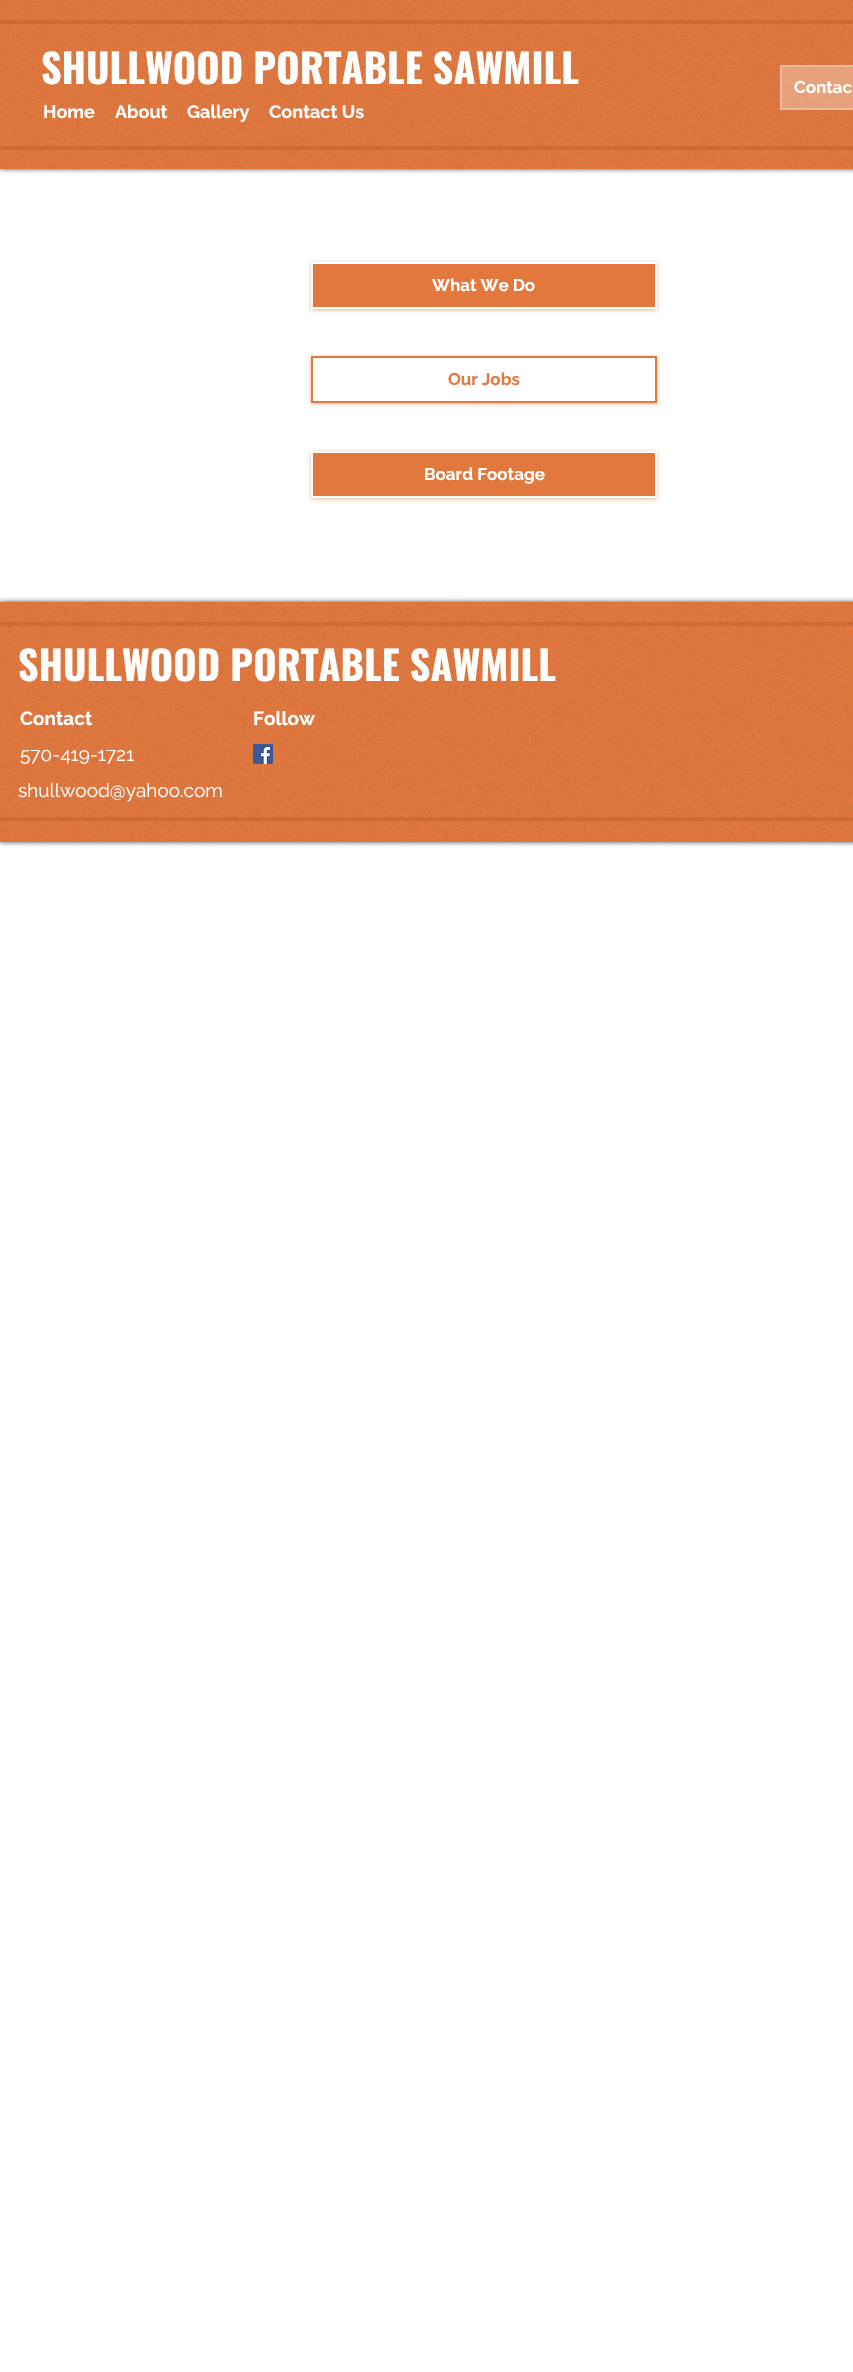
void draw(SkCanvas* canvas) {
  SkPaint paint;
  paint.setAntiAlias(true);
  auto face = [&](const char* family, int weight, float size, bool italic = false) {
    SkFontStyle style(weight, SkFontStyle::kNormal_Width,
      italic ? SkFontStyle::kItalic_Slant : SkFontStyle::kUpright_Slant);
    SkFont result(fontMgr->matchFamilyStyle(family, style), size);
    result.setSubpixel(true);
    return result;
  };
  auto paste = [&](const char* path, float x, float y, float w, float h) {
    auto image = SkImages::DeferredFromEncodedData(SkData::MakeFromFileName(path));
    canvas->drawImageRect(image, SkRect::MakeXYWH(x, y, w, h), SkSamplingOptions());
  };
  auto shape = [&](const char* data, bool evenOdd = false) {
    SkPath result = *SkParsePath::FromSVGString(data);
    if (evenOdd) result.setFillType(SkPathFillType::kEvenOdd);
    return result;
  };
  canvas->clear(0xffffffff);
  paint.setColor(0xb3000000);
  paint.setMaskFilter(SkMaskFilter::MakeBlur(kNormal_SkBlurStyle, 2.5f));
  canvas->drawRect(SkRect::MakeXYWH(0, 0, 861, 169), paint);
  paint.setMaskFilter(nullptr);
  paint.setColor(0xffe3783e);
  canvas->drawRect(SkRect::MakeXYWH(0, 0, 853, 169), paint);
  paste("img/1.png", 0, 0, 853, 169);
  paint.setColor(0x42a84b18);
  canvas->drawRect(SkRect::MakeXYWH(0, 20, 853, 4), paint);
  paint.setColor(0x4fffffff);
  canvas->drawRect(SkRect::MakeXYWH(780, 65, 73, 45), paint);
  paint.setStroke(true);
  paint.setStrokeWidth(2);
  paint.setColor(0x47ffffff);
  canvas->drawRect(SkRect::MakeXYWH(781, 66, 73, 43), paint);
  paint.setStroke(false);
  paint.setColor(0x42a84b18);
  canvas->drawRect(SkRect::MakeXYWH(0, 146, 853, 4), paint);
  paint.setColor(0x99e3783e);
  paint.setMaskFilter(SkMaskFilter::MakeBlur(kNormal_SkBlurStyle, 2));
  canvas->drawRect(SkRect::MakeXYWH(311, 263, 346, 47), paint);
  paint.setMaskFilter(nullptr);
  paint.setColor(0xffe3783e);
  canvas->drawRect(SkRect::MakeXYWH(312, 263, 344, 45), paint);
  paint.setStroke(true);
  paint.setColor(0xffffffff);
  canvas->drawRect(SkRect::MakeXYWH(312, 263, 344, 45), paint);
  canvas->save();
  canvas->clipPath(shape("M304 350H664V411H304ZM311 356H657V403H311Z", true), true);
  paint.setStroke(false);
  paint.setColor(0x99e3783e);
  paint.setMaskFilter(SkMaskFilter::MakeBlur(kNormal_SkBlurStyle, 2));
  canvas->drawRect(SkRect::MakeXYWH(311, 357, 346, 47), paint);
  paint.setMaskFilter(nullptr);
  canvas->restore();
  paint.setStroke(true);
  paint.setColor(0xffe3783e);
  canvas->drawRect(SkRect::MakeXYWH(312, 357, 344, 45), paint);
  paint.setStroke(false);
  paint.setColor(0x99e3783e);
  paint.setMaskFilter(SkMaskFilter::MakeBlur(kNormal_SkBlurStyle, 2));
  canvas->drawRect(SkRect::MakeXYWH(311, 452, 346, 47), paint);
  paint.setMaskFilter(nullptr);
  paint.setColor(0xffe3783e);
  canvas->drawRect(SkRect::MakeXYWH(312, 452, 344, 45), paint);
  paint.setStroke(true);
  paint.setColor(0xffffffff);
  canvas->drawRect(SkRect::MakeXYWH(312, 452, 344, 45), paint);
  paint.setStroke(false);
  paint.setColor(0xb3000000);
  paint.setMaskFilter(SkMaskFilter::MakeBlur(kNormal_SkBlurStyle, 2.5f));
  canvas->drawRect(SkRect::MakeXYWH(0, 602, 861, 240), paint);
  paint.setMaskFilter(nullptr);
  paint.setColor(0xffe3783e);
  canvas->drawRect(SkRect::MakeXYWH(0, 602, 853, 240), paint);
  paste("img/2.png", 0, 602, 853, 240);
  paint.setColor(0x42a84b18);
  canvas->drawRect(SkRect::MakeXYWH(0, 622, 853, 4), paint);
  paste("img/3.png", 253, 744, 20, 20);
  canvas->drawRect(SkRect::MakeXYWH(0, 817, 853, 4), paint);
  auto f0 = face("Oswald", 700, 40);
  paint.setColor(0xffffffff);
  canvas->drawString("SHULLWOOD PORTABLE SAWMILL", 41, 84, f0, paint);
  auto f1 = face("Raleway", 700, 18);
  {
    const struct { const char* s; float x, y; } items[] = {
      {"Home", 43, 118},
      {"About", 115, 118},
      {"Gallery", 187, 118},
      {"Contact Us", 269, 118},
    };
    for (auto [s, x, y] : items) {
      canvas->drawString(s, x, y, f1, paint);
    }
  }
  auto f2 = face("Raleway", 700, 17);
  canvas->drawString("Contac", 794, 93, f2, paint);
  canvas->drawString("What We Do", 432, 291, f2, paint);
  paint.setColor(0xffe3783e);
  canvas->drawString("Our Jobs", 448, 385, f2, paint);
  paint.setColor(0xffffffff);
  canvas->drawString("Board Footage", 424, 480, f2, paint);
  canvas->drawString("SHULLWOOD PORTABLE SAWMILL", 18, 681, f0, paint);
  auto f3 = face("Raleway", 700, 19);
  canvas->drawString("Contact", 20, 725, f3, paint);
  canvas->drawString("Follow", 253, 725, f3, paint);
  auto f4 = face("Raleway", 400, 19);
  canvas->drawString("570-419-1721", 20, 761, f4, paint);
  canvas->drawString("shullwood@yahoo.com", 18, 797, f4, paint);
}
